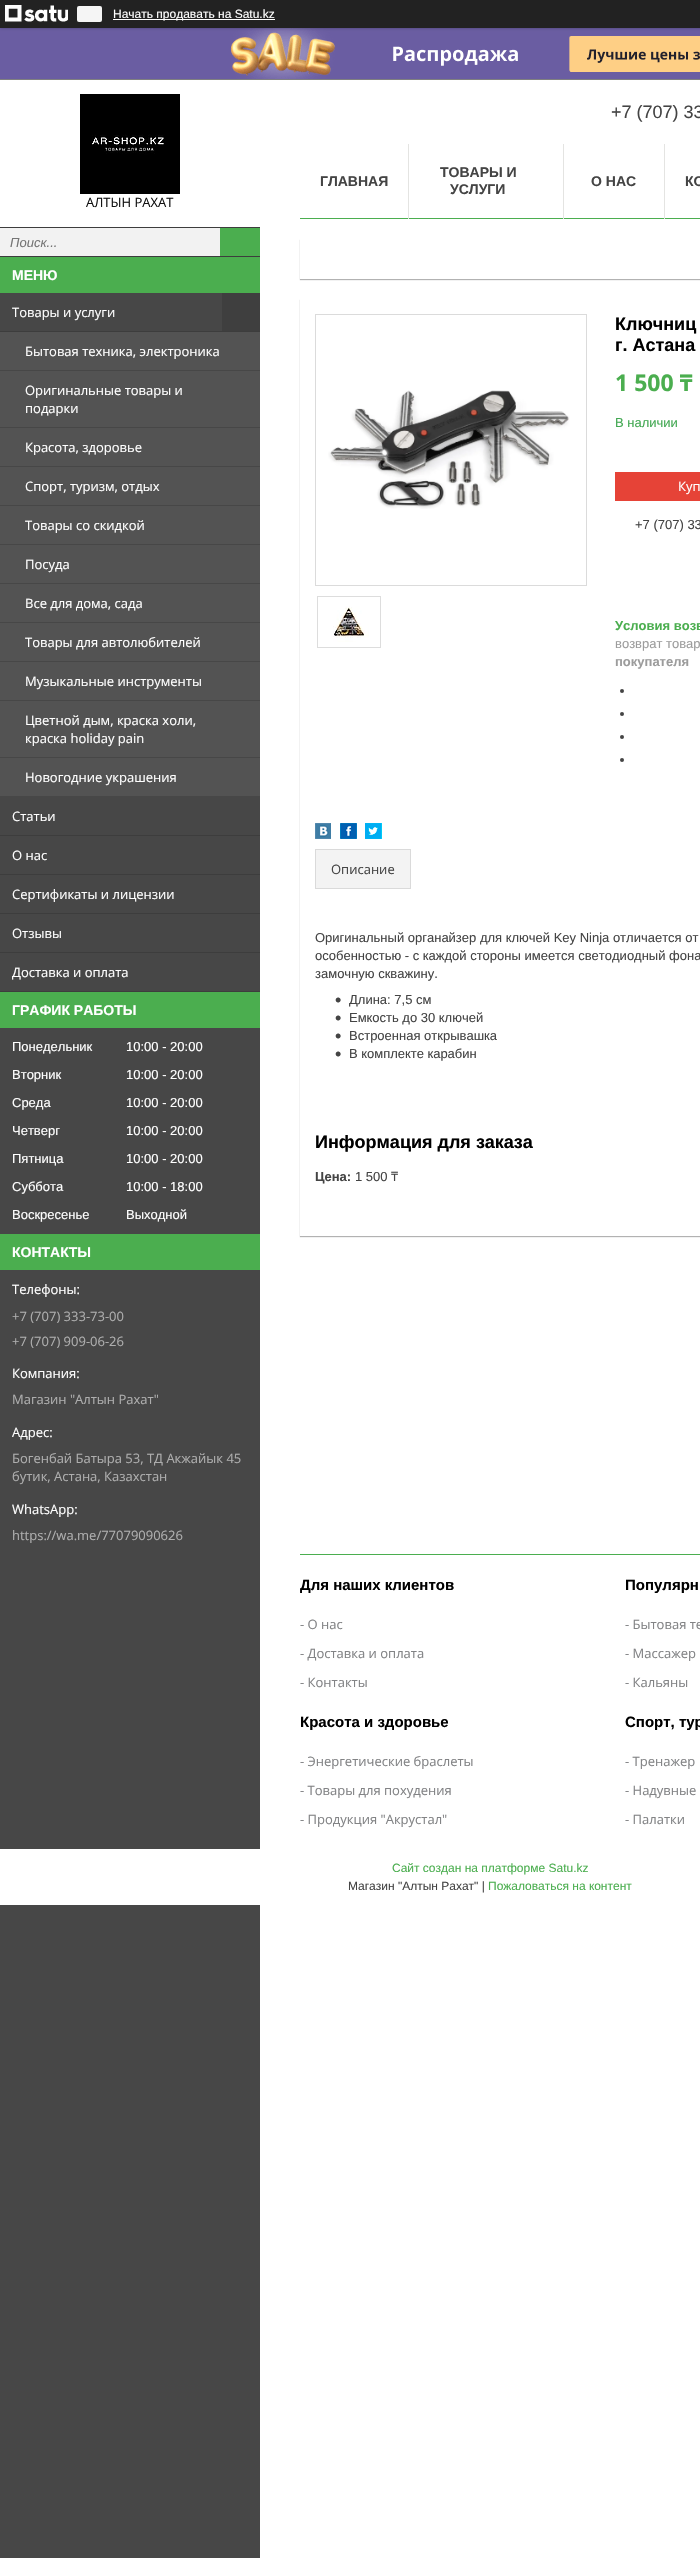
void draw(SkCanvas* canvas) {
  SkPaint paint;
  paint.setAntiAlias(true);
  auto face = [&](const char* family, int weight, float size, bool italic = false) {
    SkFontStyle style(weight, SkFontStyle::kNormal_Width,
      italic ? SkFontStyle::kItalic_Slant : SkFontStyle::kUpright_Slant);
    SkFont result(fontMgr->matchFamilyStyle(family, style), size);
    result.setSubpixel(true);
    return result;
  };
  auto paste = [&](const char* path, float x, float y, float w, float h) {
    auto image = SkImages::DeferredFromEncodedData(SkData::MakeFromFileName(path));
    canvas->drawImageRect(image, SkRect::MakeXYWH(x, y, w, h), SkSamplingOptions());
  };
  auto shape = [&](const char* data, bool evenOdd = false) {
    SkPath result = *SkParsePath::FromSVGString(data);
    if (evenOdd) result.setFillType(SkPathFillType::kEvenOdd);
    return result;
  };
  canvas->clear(0xffffffff);
  paint.setColor(0xff6a5da2);
  canvas->drawRect(SkRect::MakeXYWH(0, 28, 230, 51), paint);
  paste("img/2.png", 230, 28, 470, 51);
  paint.setColor(0x4d000000);
  paint.setMaskFilter(SkMaskFilter::MakeBlur(kNormal_SkBlurStyle, 1.5f));
  canvas->drawRect(SkRect::MakeXYWH(0, 0, 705, 28), paint);
  paint.setMaskFilter(nullptr);
  paint.setColor(0xff222222);
  canvas->drawRect(SkRect::MakeXYWH(0, 0, 700, 28), paint);
  paste("img/1.png", 5, 5, 63, 17);
  paint.setColor(0xfff5f5f5);
  canvas->drawRoundRect(SkRect::MakeXYWH(77, 6, 25, 16), 2, 2, paint);
  paint.setColor(0xffffffff);
  canvas->drawRect(SkRect::MakeXYWH(113, 19, 162, 1), paint);
  paint.setColor(0xff808080);
  canvas->drawRect(SkRect::MakeXYWH(0, 79, 700, 1), paint);
  paste("img/3.png", 80, 94, 100, 100);
  {
    const struct { float x, y, w, h; SkColor color; } items[] = {
      {0, 228, 220, 28, 0xfff2f2f2},
      {0, 227, 260, 1, 0xff3d3d3d},
      {0, 256, 260, 1, 0xff3d3d3d},
      {220, 228, 40, 28, 0xff4bae4f},
      {0, 257, 260, 36, 0xff4bae4f},
      {0, 293, 260, 2265, 0xff474747},
      {0, 331, 260, 1, 0xff3d3d3d},
      {222, 293, 38, 38, 0xff3f3f3f},
      {0, 332, 260, 38, 0xff535353},
      {0, 371, 260, 56, 0xff535353},
      {0, 428, 260, 38, 0xff535353},
      {0, 467, 260, 38, 0xff535353},
      {0, 506, 260, 38, 0xff535353},
      {0, 545, 260, 38, 0xff535353},
      {0, 584, 260, 38, 0xff535353},
      {0, 623, 260, 38, 0xff535353},
      {0, 662, 260, 38, 0xff535353},
      {0, 701, 260, 56, 0xff535353},
      {0, 758, 260, 38, 0xff535353},
      {0, 835, 260, 1, 0xff3d3d3d},
      {0, 874, 260, 1, 0xff3d3d3d},
      {0, 913, 260, 1, 0xff3d3d3d},
      {0, 952, 260, 1, 0xff3d3d3d},
      {0, 991, 260, 1, 0xff3d3d3d},
      {0, 992, 260, 36, 0xff4bae4f},
      {0, 1234, 260, 36, 0xff4bae4f},
      {300, 218, 400, 1, 0xff4bae4f},
      {408, 144, 1, 75, 0xffe4e4e2},
      {563, 144, 1, 75, 0xffe4e4e2},
      {664, 144, 1, 75, 0xffe4e4e2},
    };
    for (auto [x, y, w, h, color] : items) {
      paint.setColor(color);
      canvas->drawRect(SkRect::MakeXYWH(x, y, w, h), paint);
    }
  }
  canvas->save();
  canvas->clipPath(shape("M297 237H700V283H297ZM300 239H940V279H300Z", true), true);
  paint.setColor(0x4d000000);
  paint.setMaskFilter(SkMaskFilter::MakeBlur(kNormal_SkBlurStyle, 0.5f));
  canvas->drawRect(SkRect::MakeXYWH(300, 240, 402, 40), paint);
  paint.setMaskFilter(nullptr);
  canvas->restore();
  canvas->save();
  canvas->clipPath(shape("M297 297H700V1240H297ZM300 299H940V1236H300Z", true), true);
  paint.setMaskFilter(SkMaskFilter::MakeBlur(kNormal_SkBlurStyle, 0.5f));
  canvas->drawRect(SkRect::MakeXYWH(300, 300, 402, 937), paint);
  paint.setMaskFilter(nullptr);
  canvas->restore();
  paint.setStroke(true);
  paint.setStrokeWidth(1);
  paint.setColor(0xffdbdbdb);
  canvas->drawRect(SkRect::MakeXYWH(315.5f, 314.5f, 271, 271), paint);
  paste("img/4.png", 328, 390, 242, 119);
  paint.setColor(0xffdddddd);
  canvas->drawRect(SkRect::MakeXYWH(317.5f, 596.5f, 63, 51), paint);
  paste("img/5.png", 333, 606, 36, 36);
  paint.setStroke(false);
  paint.setColor(0xffe64337);
  canvas->drawRect(SkRect::MakeXYWH(615, 472, 85, 29), paint);
  paint.setColor(0xff444444);
  canvas->drawCircle(622, 691, 2, paint);
  canvas->drawCircle(622, 714, 2, paint);
  canvas->drawCircle(622, 737, 2, paint);
  canvas->drawCircle(622, 760, 2, paint);
  paste("img/6.png", 315, 823, 16, 16);
  paste("img/7.png", 340, 823, 17, 16);
  paste("img/8.png", 365, 823, 17, 16);
  paint.setColor(0xfff3f3f3);
  canvas->drawRect(SkRect::MakeXYWH(315.5f, 849.5f, 95, 39), paint);
  paint.setStroke(true);
  paint.setColor(0xffdadada);
  canvas->drawRect(SkRect::MakeXYWH(315.5f, 849.5f, 95, 39), paint);
  paint.setStroke(false);
  paint.setColor(0xff4bae4f);
  canvas->drawRect(SkRect::MakeXYWH(300, 1554, 400, 1), paint);
  paint.setColor(0xffffffff);
  canvas->drawRect(SkRect::MakeXYWH(0, 1849, 260, 56), paint);
  auto f0 = face("Liberation Sans", 400, 12);
  canvas->drawString("Начать продавать на Satu.kz", 113, 18, f0, paint);
  auto f1 = face("Open Sans", 400, 13);
  paint.setColor(0xff111111);
  canvas->drawString("АЛТЫН РАХАТ", 86, 207, f1, paint);
  auto f2 = face("Liberation Sans", 400, 13, true);
  paint.setColor(0xff757575);
  canvas->drawString("Поиск...", 10, 247, f2, paint);
  auto f3 = face("Liberation Sans", 700, 14);
  paint.setColor(0xffffffff);
  canvas->drawString("МЕНЮ", 12, 280, f3, paint);
  {
    const struct { const char* s; float x, y; } items[] = {
      {"Товары и услуги", 12, 317},
      {"Бытовая техника, электроника", 25, 356},
      {"Оригинальные товары и", 25, 395},
      {"подарки", 25, 413},
      {"Красота, здоровье", 25, 452},
      {"Спорт, туризм, отдых", 25, 491},
      {"Товары со скидкой", 25, 530},
      {"Посуда", 25, 569},
      {"Все для дома, сада", 25, 608},
      {"Товары для автолюбителей", 25, 647},
      {"Музыкальные инструменты", 25, 686},
      {"Цветной дым, краска холи,", 25, 725},
      {"краска holiday pain", 25, 743},
      {"Новогодние украшения", 25, 782},
      {"Статьи", 12, 821},
      {"О нас", 12, 860},
      {"Сертификаты и лицензии", 12, 899},
      {"Отзывы", 12, 938},
      {"Доставка и оплата", 12, 977},
    };
    for (auto [s, x, y] : items) {
      canvas->drawString(s, x, y, f1, paint);
    }
  }
  canvas->drawString("ГРАФИК РАБОТЫ", 12, 1015, f3, paint);
  auto f4 = face("Liberation Sans", 400, 13);
  {
    const struct { const char* s; float x, y; } items[] = {
      {"Понедельник", 12, 1051},
      {"10:00 - 20:00", 126, 1051},
      {"Вторник", 12, 1079},
      {"10:00 - 20:00", 126, 1079},
      {"Среда", 12, 1107},
      {"10:00 - 20:00", 126, 1107},
      {"Четверг", 12, 1135},
      {"10:00 - 20:00", 126, 1135},
      {"Пятница", 12, 1163},
      {"10:00 - 20:00", 126, 1163},
      {"Суббота", 12, 1191},
      {"10:00 - 18:00", 126, 1191},
      {"Воскресенье", 12, 1219},
      {"Выходной", 126, 1219},
    };
    for (auto [s, x, y] : items) {
      canvas->drawString(s, x, y, f4, paint);
    }
  }
  canvas->drawString("КОНТАКТЫ", 12, 1257, f3, paint);
  canvas->drawString("Телефоны:", 12, 1294, f1, paint);
  paint.setColor(0xffaeaeae);
  canvas->drawString("+7 (707) 333-73-00", 12, 1321, f1, paint);
  canvas->drawString("+7 (707) 909-06-26", 12, 1346, f1, paint);
  paint.setColor(0xffffffff);
  canvas->drawString("Компания:", 12, 1378, f1, paint);
  paint.setColor(0xffaeaeae);
  canvas->drawString("Магазин \"Алтын Рахат\"", 12, 1404, f1, paint);
  paint.setColor(0xffffffff);
  canvas->drawString("Адрес:", 12, 1437, f1, paint);
  paint.setColor(0xffaeaeae);
  canvas->drawString("Богенбай Батыра 53, ТД Акжайык 45", 12, 1463, f1, paint);
  canvas->drawString("бутик, Астана, Казахстан", 12, 1481, f1, paint);
  paint.setColor(0xffffffff);
  canvas->drawString("WhatsApp:", 12, 1514, f1, paint);
  paint.setColor(0xffaeaeae);
  canvas->drawString("https://wa.me/77079090626", 12, 1540, f1, paint);
  auto f5 = face("Liberation Sans", 400, 18);
  paint.setColor(0xff444444);
  canvas->drawString("+7 (707) 33", 611, 118, f5, paint);
  {
    const struct { const char* s; float x, y; } items[] = {
      {"ГЛАВНАЯ", 320, 186},
      {"ТОВАРЫ И", 440, 177},
      {"УСЛУГИ", 450, 194},
      {"О НАС", 591, 186},
      {"КО", 685, 186},
    };
    for (auto [s, x, y] : items) {
      canvas->drawString(s, x, y, f3, paint);
    }
  }
  auto f6 = face("Liberation Sans", 700, 18);
  paint.setColor(0xff000000);
  canvas->drawString("Ключниц", 615, 330, f6, paint);
  canvas->drawString("г. Астана", 615, 351, f6, paint);
  auto f7 = face("Noto Sans", 700, 23);
  paint.setColor(0xff4bae4f);
  canvas->drawString("1 500 ₸", 615, 391, f7, paint);
  paint.setColor(0xff42a852);
  canvas->drawString("В наличии", 615, 427, f4, paint);
  paint.setColor(0xffffffff);
  canvas->drawString("Куп", 678, 491, f1, paint);
  paint.setColor(0xff444444);
  canvas->drawString("+7 (707) 33", 635, 529, f4, paint);
  auto f8 = face("Liberation Sans", 700, 13);
  paint.setColor(0xff4bae4f);
  canvas->drawString("Условия возв", 615, 630, f8, paint);
  paint.setColor(0xff9c9c9c);
  canvas->drawString("возврат товар", 615, 648, f4, paint);
  canvas->drawString("покупателя", 615, 666, f8, paint);
  paint.setColor(0xff444444);
  canvas->drawString("Описание", 331, 874, f1, paint);
  {
    const struct { const char* s; float x, y; } items[] = {
      {"Оригинальный органайзер для ключей Key Ninja отличается от", 315, 942},
      {"особенностью - с каждой стороны имеется светодиодный фона", 315, 960},
      {"замочную скважину.", 315, 978},
    };
    for (auto [s, x, y] : items) {
      canvas->drawString(s, x, y, f4, paint);
    }
  }
  canvas->drawString("•", 335, 1006, f5, paint);
  canvas->drawString("Длина: 7,5 см", 349, 1004, f4, paint);
  canvas->drawString("•", 335, 1024, f5, paint);
  canvas->drawString("Емкость до 30 ключей", 349, 1022, f4, paint);
  canvas->drawString("•", 335, 1042, f5, paint);
  canvas->drawString("Встроенная открывашка", 349, 1040, f4, paint);
  canvas->drawString("•", 335, 1060, f5, paint);
  canvas->drawString("В комплекте карабин", 349, 1058, f4, paint);
  paint.setColor(0xff000000);
  canvas->drawString("Информация для заказа", 315, 1148, f6, paint);
  paint.setColor(0xff444444);
  canvas->drawString("Цена:", 315, 1181, f8, paint);
  canvas->drawString("1 500", 355, 1181, f4, paint);
  auto f9 = face("Noto Sans", 400, 13);
  canvas->drawString("₸", 391, 1181, f9, paint);
  auto f10 = face("Liberation Sans", 700, 15);
  paint.setColor(0xff000000);
  canvas->drawString("Для наших клиентов", 300, 1590, f10, paint);
  paint.setColor(0xff828385);
  {
    const struct { const char* s; float x, y; } items[] = {
      {"- О нас", 300, 1629},
      {"- Доставка и оплата", 300, 1658},
      {"- Контакты", 300, 1687},
    };
    for (auto [s, x, y] : items) {
      canvas->drawString(s, x, y, f1, paint);
    }
  }
  paint.setColor(0xff000000);
  canvas->drawString("Популярн", 625, 1590, f10, paint);
  paint.setColor(0xff828385);
  {
    const struct { const char* s; float x, y; } items[] = {
      {"- Бытовая те", 625, 1629},
      {"- Массажер", 625, 1658},
      {"- Кальяны", 625, 1687},
    };
    for (auto [s, x, y] : items) {
      canvas->drawString(s, x, y, f1, paint);
    }
  }
  paint.setColor(0xff000000);
  canvas->drawString("Красота и здоровье", 300, 1727, f10, paint);
  paint.setColor(0xff828385);
  {
    const struct { const char* s; float x, y; } items[] = {
      {"- Энергетические браслеты", 300, 1766},
      {"- Товары для похудения", 300, 1795},
      {"- Продукция \"Акрустал\"", 300, 1824},
    };
    for (auto [s, x, y] : items) {
      canvas->drawString(s, x, y, f1, paint);
    }
  }
  paint.setColor(0xff000000);
  canvas->drawString("Спорт, тур", 625, 1727, f10, paint);
  paint.setColor(0xff828385);
  {
    const struct { const char* s; float x, y; } items[] = {
      {"- Тренажер", 625, 1766},
      {"- Надувные", 625, 1795},
      {"- Палатки", 625, 1824},
    };
    for (auto [s, x, y] : items) {
      canvas->drawString(s, x, y, f1, paint);
    }
  }
  paint.setColor(0xff4bae4f);
  canvas->drawString("Сайт создан на платформе Satu.kz", 392, 1872, f0, paint);
  paint.setColor(0xff444444);
  canvas->drawString("Магазин \"Алтын Рахат\" |", 348, 1890, f0, paint);
  paint.setColor(0xff4bae4f);
  canvas->drawString("Пожаловаться на контент", 488, 1890, f0, paint);
}
